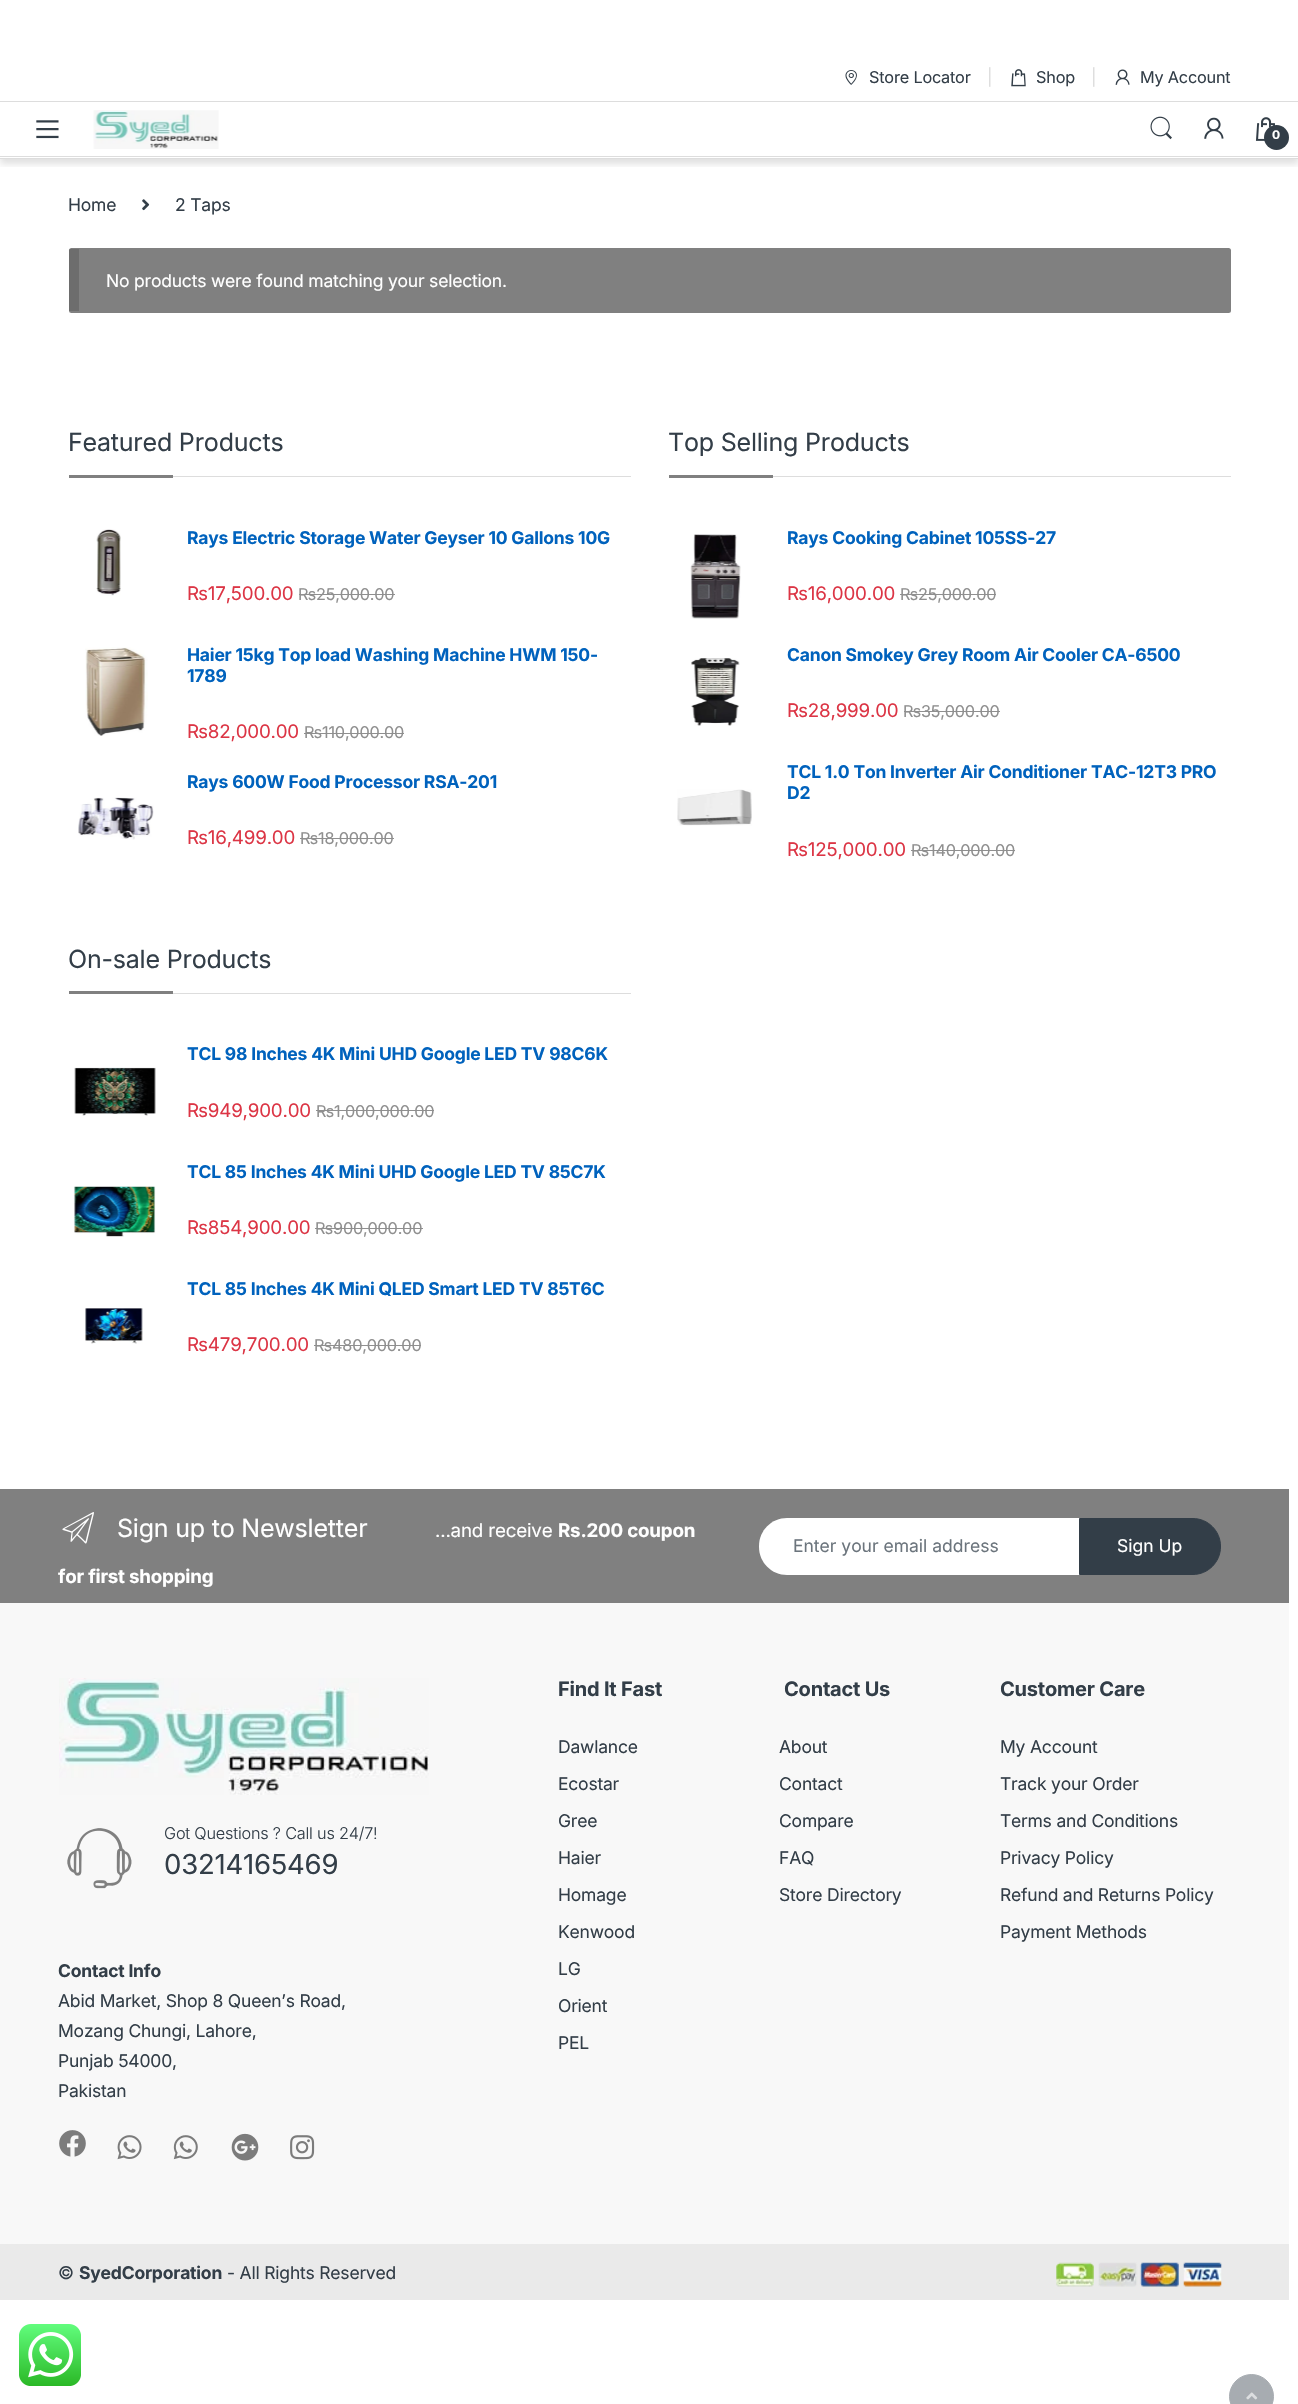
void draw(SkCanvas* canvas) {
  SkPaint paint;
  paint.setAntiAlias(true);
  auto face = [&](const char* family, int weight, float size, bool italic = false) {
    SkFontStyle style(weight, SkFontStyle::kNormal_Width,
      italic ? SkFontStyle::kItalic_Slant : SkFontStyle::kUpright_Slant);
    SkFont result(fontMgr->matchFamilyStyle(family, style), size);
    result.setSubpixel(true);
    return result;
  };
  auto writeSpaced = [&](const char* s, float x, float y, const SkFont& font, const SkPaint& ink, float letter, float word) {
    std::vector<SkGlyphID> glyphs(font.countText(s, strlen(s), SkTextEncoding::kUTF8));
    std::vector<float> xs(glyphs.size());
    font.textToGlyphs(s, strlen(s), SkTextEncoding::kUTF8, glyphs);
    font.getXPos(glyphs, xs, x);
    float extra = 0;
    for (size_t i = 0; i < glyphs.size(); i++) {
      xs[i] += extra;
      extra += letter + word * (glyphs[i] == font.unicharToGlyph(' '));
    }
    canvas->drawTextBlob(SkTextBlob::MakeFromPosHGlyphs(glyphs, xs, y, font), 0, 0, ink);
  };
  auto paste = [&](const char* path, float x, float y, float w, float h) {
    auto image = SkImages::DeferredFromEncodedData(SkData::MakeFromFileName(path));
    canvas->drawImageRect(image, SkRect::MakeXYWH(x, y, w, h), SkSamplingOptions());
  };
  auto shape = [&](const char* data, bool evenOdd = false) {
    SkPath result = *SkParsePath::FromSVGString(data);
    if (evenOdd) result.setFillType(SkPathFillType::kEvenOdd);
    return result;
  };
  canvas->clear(0xffffffff);
  paint.setColor(0xffdddddd);
  canvas->drawRect(SkRect::MakeXYWH(0, 101, 1298, 1), paint);
  paste("img/1.png", 845, 70, 12, 15);
  paste("img/2.png", 1011, 69, 15, 18);
  paste("img/3.png", 1115, 69, 15, 16);
  canvas->save();
  canvas->clipRect(SkRect::MakeXYWH(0, 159, 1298, 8));
  paint.setColor(0x1f000000);
  paint.setMaskFilter(SkMaskFilter::MakeBlur(kNormal_SkBlurStyle, 3.5f));
  canvas->drawRect(SkRect::MakeXYWH(0, 108, 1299, 56), paint);
  paint.setMaskFilter(nullptr);
  canvas->restore();
  paint.setColor(0xffdddddd);
  canvas->drawRect(SkRect::MakeXYWH(0, 158, 1298, 1), paint);
  canvas->drawRect(SkRect::MakeXYWH(0, 156, 1298, 1), paint);
  paste("img/4.png", 36, 120, 23, 19);
  paste("img/5.png", 93, 110, 126, 39);
  paste("img/6.png", 1150, 116, 22, 24);
  paste("img/7.png", 1204, 117, 20, 22);
  paste("img/8.png", 1255, 117, 21, 24);
  paint.setColor(0xff333e48);
  canvas->drawCircle(1276.5f, 137.5f, 12.5f, paint);
  paste("img/9.png", 142, 199, 8, 12);
  paint.setColor(0xff808080);
  canvas->drawRoundRect(SkRect::MakeXYWH(69, 248, 1162, 65), 2.5f, 2.5f, paint);
  {
    const struct { float x, y, w, h; SkColor color; } items[] = {
      {69, 249, 10, 62, 0x26000000},
      {173, 476, 458, 1, 0xffdddddd},
      {69, 475, 104, 3, 0xff808080},
    };
    for (auto [x, y, w, h, color] : items) {
      paint.setColor(color);
      canvas->drawRect(SkRect::MakeXYWH(x, y, w, h), paint);
    }
  }
  paste("img/10.png", 96, 529, 25, 67);
  paint.setColor(0xff8f8f8f);
  canvas->drawRect(SkRect::MakeXYWH(299, 594, 96, 1), paint);
  paste("img/11.png", 85, 647, 63, 89);
  canvas->drawRect(SkRect::MakeXYWH(304, 733, 100, 1), paint);
  paste("img/12.png", 78, 797, 76, 43);
  {
    const struct { float x, y, w, h; SkColor color; } items[] = {
      {300, 838, 94, 1, 0xff8f8f8f},
      {773, 476, 458, 1, 0xffdddddd},
      {669, 475, 104, 3, 0xff808080},
    };
    for (auto [x, y, w, h, color] : items) {
      paint.setColor(color);
      canvas->drawRect(SkRect::MakeXYWH(x, y, w, h), paint);
    }
  }
  paste("img/13.png", 690, 534, 51, 85);
  paint.setColor(0xff8f8f8f);
  canvas->drawRect(SkRect::MakeXYWH(900, 594, 96, 1), paint);
  paste("img/14.png", 691, 658, 49, 68);
  canvas->drawRect(SkRect::MakeXYWH(904, 711, 96, 1), paint);
  paste("img/15.png", 677, 789, 75, 37);
  {
    const struct { float x, y, w, h; SkColor color; } items[] = {
      {911, 850, 104, 1, 0xff8f8f8f},
      {173, 993, 458, 1, 0xffdddddd},
      {69, 991, 104, 3, 0xff808080},
    };
    for (auto [x, y, w, h, color] : items) {
      paint.setColor(color);
      canvas->drawRect(SkRect::MakeXYWH(x, y, w, h), paint);
    }
  }
  paste("img/16.png", 74, 1067, 82, 49);
  paint.setColor(0xff8f8f8f);
  canvas->drawRect(SkRect::MakeXYWH(316, 1110, 118, 1), paint);
  paste("img/17.png", 73, 1186, 83, 51);
  canvas->drawRect(SkRect::MakeXYWH(315, 1228, 108, 1), paint);
  paste("img/18.png", 85, 1308, 58, 36);
  canvas->drawRect(SkRect::MakeXYWH(314, 1345, 107, 1), paint);
  paint.setColor(0xff808080);
  canvas->drawRect(SkRect::MakeXYWH(0, 1489, 1289, 114), paint);
  paste("img/19.png", 62, 1512, 32, 32);
  paint.setColor(0xffffffff);
  canvas->drawPath(shape("M787 1518H1080V1575H787C771.5 1575 759 1562.5 759 1547V1546C759 1530.5 771.5 1518 787 1518Z"), paint);
  paint.setColor(0xff333e48);
  canvas->drawPath(shape("M1079.5 1518.5H1193C1208 1518.5 1220.5 1531 1220.5 1546V1547C1220.5 1562 1208 1574.5 1193 1574.5H1079.5Z"), paint);
  paint.setStroke(true);
  paint.setStrokeWidth(1);
  canvas->drawPath(shape("M1079.5 1518.5H1193C1208 1518.5 1220.5 1531 1220.5 1546V1547C1220.5 1562 1208 1574.5 1193 1574.5H1079.5Z"), paint);
  paint.setStroke(false);
  paint.setColor(0xfff8f8f8);
  canvas->drawRect(SkRect::MakeXYWH(0, 1603, 1289, 641), paint);
  paste("img/20.png", 59, 1678, 370, 117);
  paste("img/21.png", 67, 1828, 65, 61);
  paste("img/22.png", 59, 2130, 27, 27);
  paste("img/23.png", 117, 2135, 25, 25);
  paste("img/24.png", 173, 2135, 25, 25);
  paste("img/25.png", 231, 2133, 28, 28);
  paste("img/26.png", 290, 2135, 25, 25);
  paint.setColor(0xffeaeaea);
  canvas->drawRect(SkRect::MakeXYWH(0, 2244, 1289, 56), paint);
  paste("img/27.png", 1056, 2262, 166, 25);
  paste("img/28.png", 19, 2324, 62, 62);
  paint.setColor(0xffa7acb1);
  canvas->drawCircle(1251.5f, 2396.5f, 22, paint);
  paint.setStroke(true);
  canvas->drawCircle(1251.5f, 2396.5f, 22, paint);
  paste("img/29.png", 1246, 2392, 12, 8);
  auto f0 = face("Inter", 400, 16.25f);
  paint.setStroke(false);
  paint.setColor(0xff333e48);
  writeSpaced("Store Locator", 869, 83, f0, paint, -0.2f, 0);
  paint.setColor(0xffdddddd);
  writeSpaced("|", 987, 83, f0, paint, -0.2f, 0);
  paint.setColor(0xff333e48);
  writeSpaced("Shop", 1036, 83, f0, paint, -0.2f, 0);
  paint.setColor(0xffdddddd);
  writeSpaced("|", 1091, 83, f0, paint, -0.2f, 0);
  paint.setColor(0xff333e48);
  writeSpaced("My Account", 1140, 83, f0, paint, -0.2f, 0);
  auto f1 = face("Inter", 700, 12);
  paint.setColor(0xffffffff);
  writeSpaced("0", 1272, 139, f1, paint, -0.2f, 0);
  auto f2 = face("Inter", 400, 17.5f);
  paint.setColor(0xff333e48);
  writeSpaced("Home", 68, 211, f2, paint, -0.2f, 0);
  writeSpaced("2 Taps", 175, 211, f2, paint, -0.2f, 0);
  paint.setColor(0xffffffff);
  writeSpaced("No products were found matching your selection.", 106, 287, f2, paint, -0.2f, 0);
  auto f3 = face("Inter", 400, 25);
  paint.setColor(0xff333e48);
  writeSpaced("Featured Products", 68, 451, f3, paint, -0.2f, 0);
  auto f4 = face("Inter", 700, 17.5f);
  paint.setColor(0xff0062bd);
  writeSpaced("Rays Electric Storage Water Geyser 10 Gallons 10G", 187, 544, f4, paint, -0.2f, 0);
  auto f5 = face("Inter", 400, 18.75f);
  paint.setColor(0xffdc3545);
  writeSpaced("₨17,500.00", 187, 600, f5, paint, -0.2f, 0);
  paint.setColor(0xff8f8f8f);
  writeSpaced("₨25,000.00", 298, 600, f0, paint, -0.2f, 0);
  paint.setColor(0xff0062bd);
  writeSpaced("Haier 15kg Top load Washing Machine HWM 150-", 187, 661, f4, paint, -0.2f, 0);
  writeSpaced("1789", 187, 682, f4, paint, -0.2f, 0);
  paint.setColor(0xffdc3545);
  writeSpaced("₨82,000.00", 187, 738, f5, paint, -0.2f, 0);
  paint.setColor(0xff8f8f8f);
  writeSpaced("₨110,000.00", 304, 738, f0, paint, -0.2f, 0);
  paint.setColor(0xff0062bd);
  writeSpaced("Rays 600W Food Processor RSA-201", 187, 788, f4, paint, -0.2f, 0);
  paint.setColor(0xffdc3545);
  writeSpaced("₨16,499.00", 187, 844, f5, paint, -0.2f, 0);
  paint.setColor(0xff8f8f8f);
  writeSpaced("₨18,000.00", 300, 844, f0, paint, -0.2f, 0);
  paint.setColor(0xff333e48);
  writeSpaced("Top Selling Products", 668, 451, f3, paint, -0.2f, 0);
  paint.setColor(0xff0062bd);
  writeSpaced("Rays Cooking Cabinet 105SS-27", 787, 544, f4, paint, -0.2f, 0);
  paint.setColor(0xffdc3545);
  writeSpaced("₨16,000.00", 787, 600, f5, paint, -0.2f, 0);
  paint.setColor(0xff8f8f8f);
  writeSpaced("₨25,000.00", 900, 600, f0, paint, -0.2f, 0);
  paint.setColor(0xff0062bd);
  writeSpaced("Canon Smokey Grey Room Air Cooler CA-6500", 787, 661, f4, paint, -0.2f, 0);
  paint.setColor(0xffdc3545);
  writeSpaced("₨28,999.00", 787, 717, f5, paint, -0.2f, 0);
  paint.setColor(0xff8f8f8f);
  writeSpaced("₨35,000.00", 903, 717, f0, paint, -0.2f, 0);
  paint.setColor(0xff0062bd);
  writeSpaced("TCL 1.0 Ton Inverter Air Conditioner TAC-12T3 PRO", 787, 778, f4, paint, -0.2f, 0);
  writeSpaced("D2", 787, 799, f4, paint, -0.2f, 0);
  paint.setColor(0xffdc3545);
  writeSpaced("₨125,000.00", 787, 856, f5, paint, -0.2f, 0);
  paint.setColor(0xff8f8f8f);
  writeSpaced("₨140,000.00", 911, 856, f0, paint, -0.2f, 0);
  paint.setColor(0xff333e48);
  writeSpaced("On-sale Products", 68, 968, f3, paint, -0.2f, 0);
  paint.setColor(0xff0062bd);
  writeSpaced("TCL 98 Inches 4K Mini UHD Google LED TV 98C6K", 187, 1060, f4, paint, -0.2f, 0);
  paint.setColor(0xffdc3545);
  writeSpaced("₨949,900.00", 187, 1117, f5, paint, -0.2f, 0);
  paint.setColor(0xff8f8f8f);
  writeSpaced("₨1,000,000.00", 316, 1117, f0, paint, -0.2f, 0);
  paint.setColor(0xff0062bd);
  writeSpaced("TCL 85 Inches 4K Mini UHD Google LED TV 85C7K", 187, 1178, f4, paint, -0.2f, 0);
  paint.setColor(0xffdc3545);
  writeSpaced("₨854,900.00", 187, 1234, f5, paint, -0.2f, 0);
  paint.setColor(0xff8f8f8f);
  writeSpaced("₨900,000.00", 315, 1234, f0, paint, -0.2f, 0);
  paint.setColor(0xff0062bd);
  writeSpaced("TCL 85 Inches 4K Mini QLED Smart LED TV 85T6C", 187, 1295, f4, paint, -0.2f, 0);
  paint.setColor(0xffdc3545);
  writeSpaced("₨479,700.00", 187, 1351, f5, paint, -0.2f, 0);
  paint.setColor(0xff8f8f8f);
  writeSpaced("₨480,000.00", 314, 1351, f0, paint, -0.2f, 0);
  paint.setColor(0xffffffff);
  writeSpaced("Sign up to Newsletter", 117, 1537, f3, paint, -0.2f, 0);
  writeSpaced("...and receive", 435, 1537, f5, paint, -0.2f, 0);
  auto f6 = face("Inter", 700, 18.75f);
  writeSpaced("Rs.200 coupon", 558, 1537, f6, paint, -0.2f, 0);
  writeSpaced("for first shopping", 58, 1583, f6, paint, -0.2f, 0);
  paint.setColor(0xff6c757d);
  canvas->drawString("Enter your email address", 793, 1552, f2, paint);
  paint.setColor(0xffffffff);
  canvas->drawString("Sign Up", 1117, 1552, f2, paint);
  auto f7 = face("Inter", 300, 16.25f);
  paint.setColor(0xff333e48);
  writeSpaced("Got Questions ? Call us 24/7!", 164, 1839, f7, paint, -0.2f, 0);
  auto f8 = face("Inter", 400, 27.5f);
  writeSpaced("03214165469", 164, 1874, f8, paint, -0.2f, 0);
  writeSpaced("Contact Info", 58, 1977, f4, paint, -0.2f, 0);
  {
    const struct { const char* s; float x, y; } items[] = {
      {"Abid Market, Shop 8 Queen’s Road,", 58, 2007},
      {"Mozang Chungi, Lahore,", 58, 2037},
      {"Punjab 54000,", 58, 2067},
      {"Pakistan", 58, 2097},
    };
    for (auto [s, x, y] : items) {
      writeSpaced(s, x, y, f2, paint, -0.2f, 0);
    }
  }
  auto f9 = face("Inter", 700, 20);
  writeSpaced("Find It Fast", 558, 1696, f9, paint, -0.2f, 0);
  {
    const struct { const char* s; float x, y; } items[] = {
      {"Dawlance", 558, 1753},
      {"Ecostar", 558, 1790},
      {"Gree", 558, 1827},
      {"Haier", 558, 1864},
      {"Homage", 558, 1901},
      {"Kenwood", 558, 1938},
      {"LG", 558, 1975},
      {"Orient", 558, 2012},
      {"PEL", 558, 2049},
    };
    for (auto [s, x, y] : items) {
      writeSpaced(s, x, y, f2, paint, -0.2f, 0);
    }
  }
  writeSpaced("Contact Us", 784, 1696, f9, paint, -0.2f, 0);
  {
    const struct { const char* s; float x, y; } items[] = {
      {"About", 779, 1753},
      {"Contact", 779, 1790},
      {"Compare", 779, 1827},
      {"FAQ", 779, 1864},
      {"Store Directory", 779, 1901},
    };
    for (auto [s, x, y] : items) {
      writeSpaced(s, x, y, f2, paint, -0.2f, 0);
    }
  }
  writeSpaced("Customer Care", 1000, 1696, f9, paint, -0.2f, 0);
  {
    const struct { const char* s; float x, y; } items[] = {
      {"My Account", 1000, 1753},
      {"Track your Order", 1000, 1790},
      {"Terms and Conditions", 1000, 1827},
      {"Privacy Policy", 1000, 1864},
      {"Refund and Returns Policy", 1000, 1901},
      {"Payment Methods", 1000, 1938},
      {"©", 58, 2279},
    };
    for (auto [s, x, y] : items) {
      writeSpaced(s, x, y, f2, paint, -0.2f, 0);
    }
  }
  writeSpaced("SyedCorporation", 79, 2279, f4, paint, -0.2f, 0);
  writeSpaced("- All Rights Reserved", 227, 2279, f2, paint, -0.2f, 0);
}
